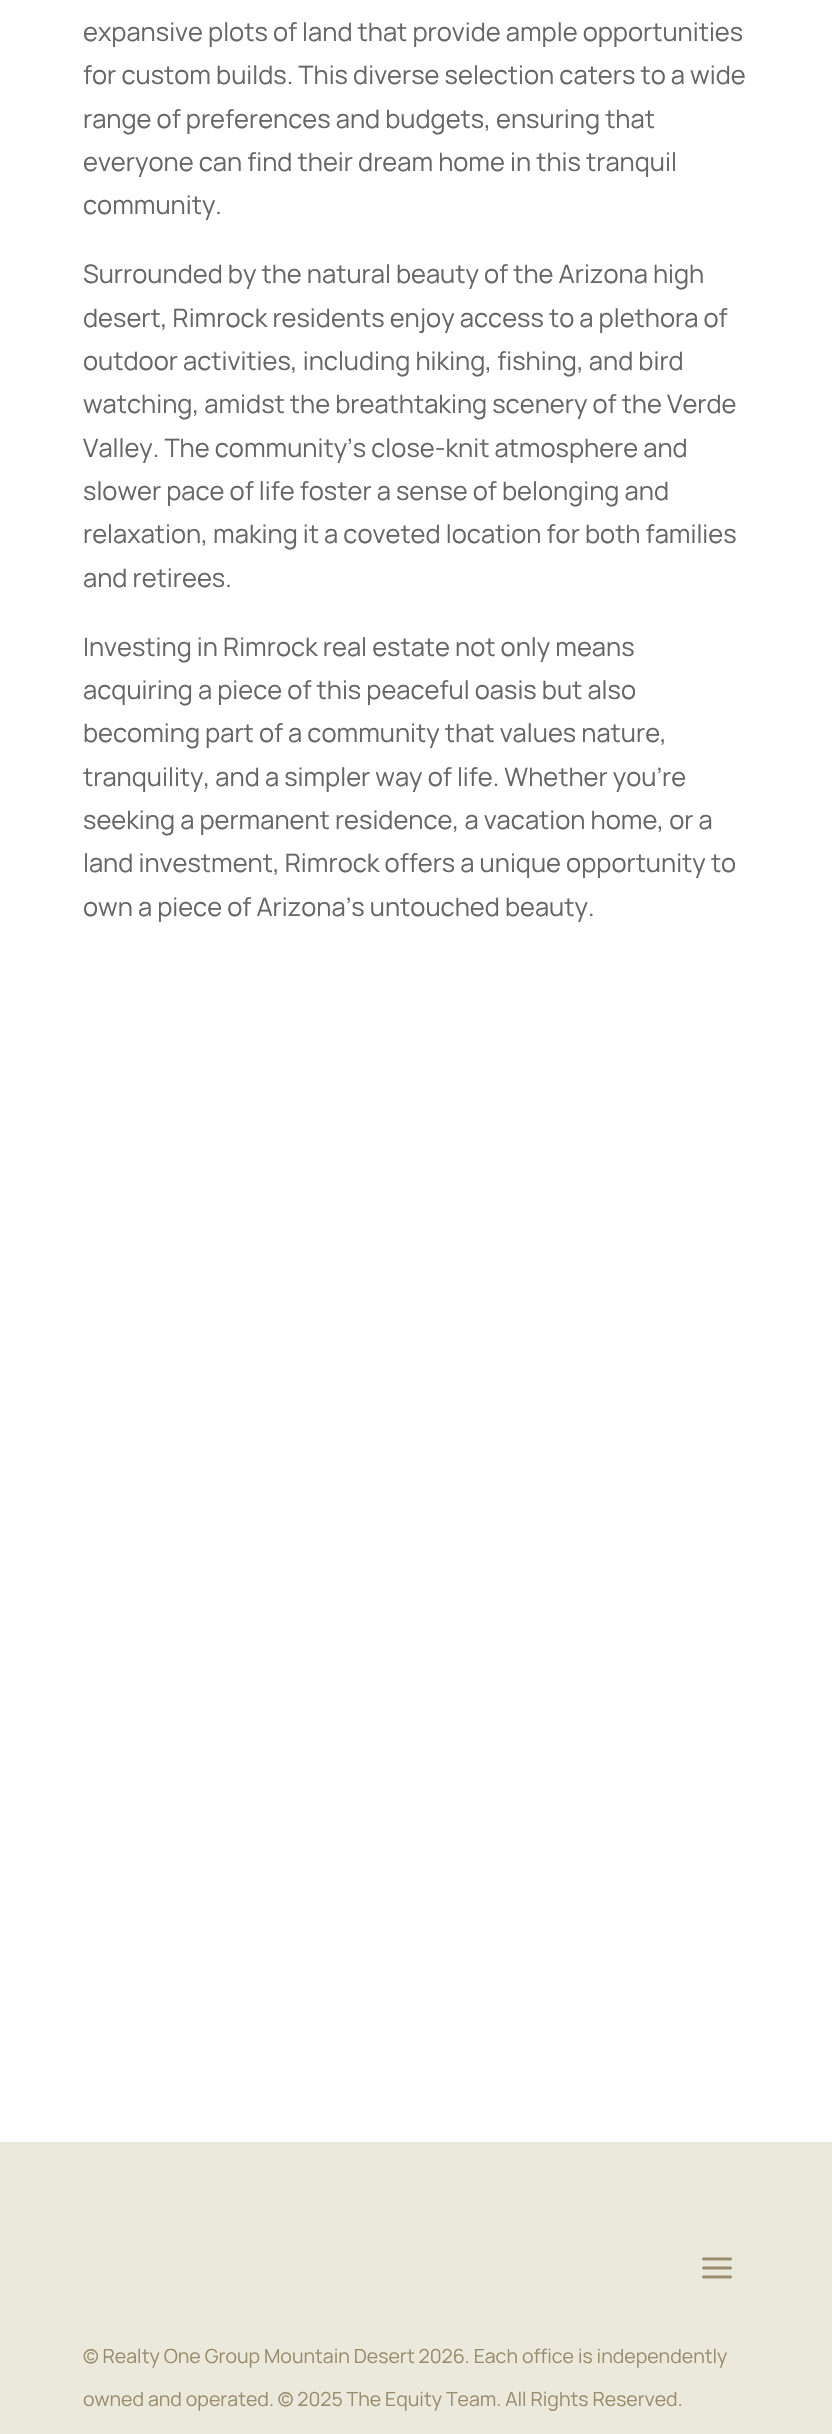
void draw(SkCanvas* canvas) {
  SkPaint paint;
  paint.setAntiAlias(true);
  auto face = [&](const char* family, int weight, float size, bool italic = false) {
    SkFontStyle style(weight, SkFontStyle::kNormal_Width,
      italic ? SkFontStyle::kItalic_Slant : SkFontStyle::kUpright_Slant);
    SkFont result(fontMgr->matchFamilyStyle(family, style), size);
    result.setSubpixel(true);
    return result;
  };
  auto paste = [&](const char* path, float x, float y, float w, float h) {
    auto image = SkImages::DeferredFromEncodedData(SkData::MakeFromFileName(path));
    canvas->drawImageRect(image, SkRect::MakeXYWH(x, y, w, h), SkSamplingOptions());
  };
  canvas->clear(0xffffffff);
  paint.setColor(0xffebe9dc);
  canvas->drawRect(SkRect::MakeXYWH(0, 2142, 832, 292), paint);
  paste("img/1.png", 702, 2257, 30, 22);
  auto f0 = face("Manrope", 400, 25.5f);
  paint.setColor(0xff666666);
  {
    const struct { const char* s; float x, y; } items[] = {
      {"expansive plots of land that provide ample opportunities", 83, 41},
      {"for custom builds. This diverse selection caters to a wide", 83, 84},
      {"range of preferences and budgets, ensuring that", 83, 128},
      {"everyone can find their dream home in this tranquil", 83, 171},
      {"community.", 83, 214},
      {"Surrounded by the natural beauty of the Arizona high", 83, 283},
      {"desert, Rimrock residents enjoy access to a plethora of", 83, 327},
      {"outdoor activities, including hiking, fishing, and bird", 83, 370},
      {"watching, amidst the breathtaking scenery of the Verde", 83, 413},
      {"Valley. The community’s close-knit atmosphere and", 83, 457},
      {"slower pace of life foster a sense of belonging and", 83, 500},
      {"relaxation, making it a coveted location for both families", 83, 543},
      {"and retirees.", 83, 587},
      {"Investing in Rimrock real estate not only means", 83, 656},
      {"acquiring a piece of this peaceful oasis but also", 83, 699},
      {"becoming part of a community that values nature,", 83, 742},
      {"tranquility, and a simpler way of life. Whether you’re", 83, 786},
      {"seeking a permanent residence, a vacation home, or a", 83, 829},
      {"land investment, Rimrock offers a unique opportunity to", 83, 872},
      {"own a piece of Arizona’s untouched beauty.", 83, 916},
    };
    for (auto [s, x, y] : items) {
      canvas->drawString(s, x, y, f0, paint);
    }
  }
  auto f1 = face("Manrope", 400, 19.5f);
  paint.setColor(0xff9a8d6c);
  canvas->drawString("© Realty One Group Mountain Desert 2026. Each office is independently", 83, 2363, f1, paint);
  canvas->drawString("owned and operated. © 2025 The Equity Team. All Rights Reserved.", 83, 2406, f1, paint);
}
